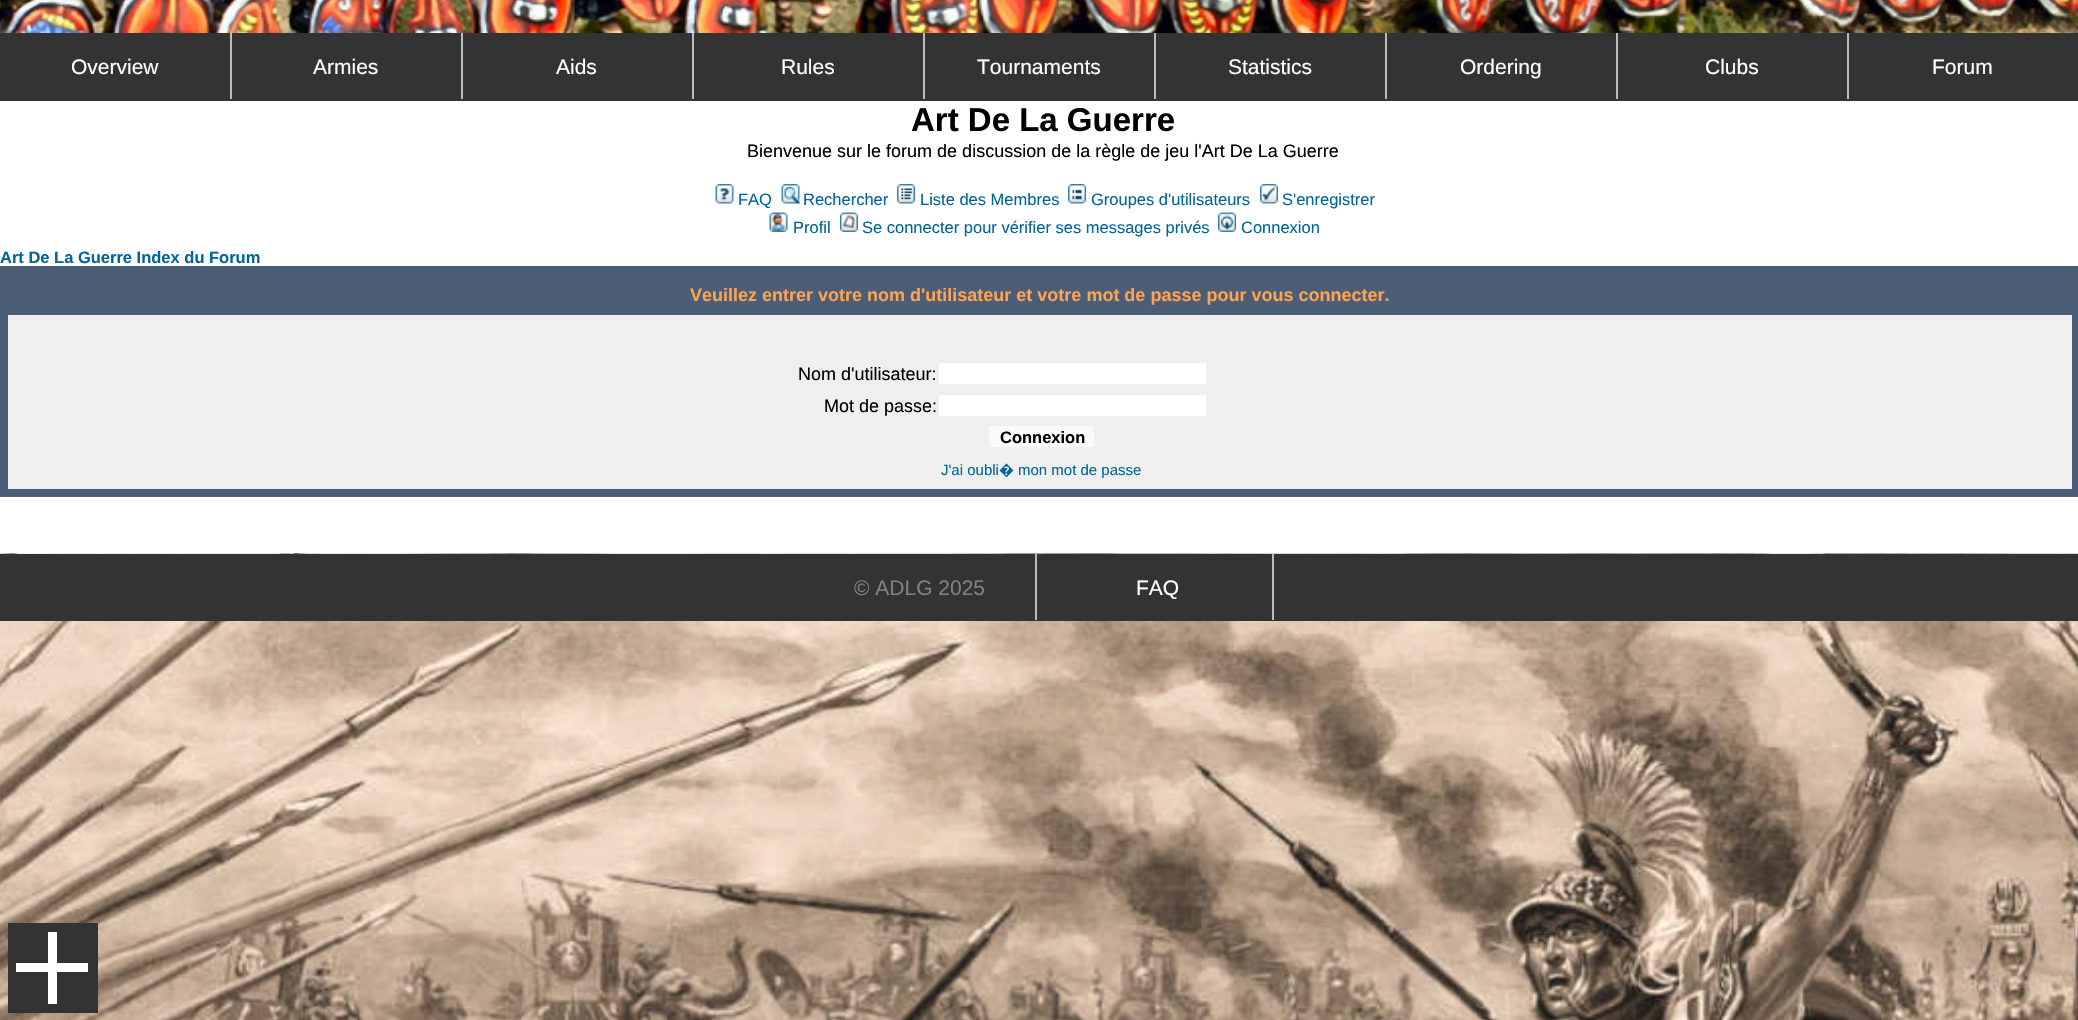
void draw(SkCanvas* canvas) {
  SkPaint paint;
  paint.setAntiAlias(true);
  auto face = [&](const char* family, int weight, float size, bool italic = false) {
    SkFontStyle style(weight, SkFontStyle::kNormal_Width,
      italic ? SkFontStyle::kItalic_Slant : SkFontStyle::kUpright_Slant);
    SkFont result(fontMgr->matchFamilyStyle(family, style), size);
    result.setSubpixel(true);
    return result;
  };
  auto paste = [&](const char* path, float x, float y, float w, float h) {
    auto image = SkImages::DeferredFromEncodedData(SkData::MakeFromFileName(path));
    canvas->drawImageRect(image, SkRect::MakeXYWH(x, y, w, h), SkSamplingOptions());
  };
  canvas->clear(0xffffffff);
  paste("img/1.png", 0, 0, 2078, 33);
  {
    const struct { float x, y, w, h; SkColor color; } items[] = {
      {0, 33, 2078, 68, 0xff333333},
      {230, 33, 2, 66, 0xffbbbbbb},
      {461, 33, 2, 66, 0xffbbbbbb},
      {692, 33, 2, 66, 0xffbbbbbb},
      {923, 33, 2, 66, 0xffbbbbbb},
      {1154, 33, 2, 66, 0xffbbbbbb},
      {1385, 33, 2, 66, 0xffbbbbbb},
      {1616, 33, 2, 66, 0xffbbbbbb},
      {1847, 33, 2, 66, 0xffbbbbbb},
    };
    for (auto [x, y, w, h, color] : items) {
      paint.setColor(color);
      canvas->drawRect(SkRect::MakeXYWH(x, y, w, h), paint);
    }
  }
  paste("img/2.png", 715, 184, 19, 20);
  paste("img/3.png", 781, 184, 19, 20);
  paste("img/4.png", 897, 184, 18, 20);
  paste("img/5.png", 1068, 184, 18, 20);
  paste("img/6.png", 1260, 184, 18, 20);
  paste("img/7.png", 769, 212, 19, 20);
  paste("img/8.png", 840, 212, 18, 20);
  paste("img/9.png", 1218, 212, 18, 20);
  paint.setStroke(true);
  paint.setStrokeWidth(8);
  paint.setColor(0xff4c5d77);
  canvas->drawRect(SkRect::MakeXYWH(4, 270, 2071, 223), paint);
  paint.setStroke(false);
  {
    const struct { float x, y, w, h; SkColor color; } items[] = {
      {8, 274, 2063, 41, 0xff4c5d77},
      {8, 315, 2064, 174, 0xffefefef},
      {939, 363, 267, 21, 0xffffffff},
      {939, 395, 267, 21, 0xffffffff},
      {989, 426, 105, 21, 0xfffafafa},
    };
    for (auto [x, y, w, h, color] : items) {
      paint.setColor(color);
      canvas->drawRect(SkRect::MakeXYWH(x, y, w, h), paint);
    }
  }
  paste("img/10.png", 0, 553, 2078, 467);
  {
    const struct { float x, y, w, h; SkColor color; } items[] = {
      {0, 554, 2078, 67, 0xff333333},
      {1035, 554, 2, 66, 0xffbbbbbb},
      {1272, 554, 2, 66, 0xffbbbbbb},
      {8, 923, 90, 90, 0xff333333},
      {48, 932, 9, 72, 0xffffffff},
      {16, 963, 72, 9, 0xffffffff},
    };
    for (auto [x, y, w, h, color] : items) {
      paint.setColor(color);
      canvas->drawRect(SkRect::MakeXYWH(x, y, w, h), paint);
    }
  }
  auto f0 = face("Liberation Sans", 400, 21);
  {
    const struct { const char* s; float x, y; } items[] = {
      {"Overview", 71, 74},
      {"Armies", 313, 74},
      {"Aids", 556, 74},
      {"Rules", 781, 74},
      {"Tournaments", 977, 74},
      {"Statistics", 1228, 74},
      {"Ordering", 1460, 74},
      {"Clubs", 1705, 74},
      {"Forum", 1932, 74},
    };
    for (auto [s, x, y] : items) {
      canvas->drawString(s, x, y, f0, paint);
    }
  }
  auto f1 = face("Liberation Sans", 700, 33);
  paint.setColor(0xff000000);
  canvas->drawString("Art De La Guerre", 911, 131, f1, paint);
  auto f2 = face("Liberation Sans", 400, 18);
  canvas->drawString("Bienvenue sur le forum de discussion de la règle de jeu l'Art De La Guerre", 747, 157, f2, paint);
  auto f3 = face("Liberation Sans", 400, 16.5f);
  paint.setColor(0xff006699);
  {
    const struct { const char* s; float x, y; } items[] = {
      {"FAQ", 738, 205},
      {"Rechercher", 803, 205},
      {"Liste des Membres", 920, 205},
      {"Groupes d'utilisateurs", 1091, 205},
      {"S'enregistrer", 1282, 205},
      {"Profil", 793, 233},
      {"Se connecter pour vérifier ses messages privés", 862, 233},
      {"Connexion", 1241, 233},
    };
    for (auto [s, x, y] : items) {
      canvas->drawString(s, x, y, f3, paint);
    }
  }
  auto f4 = face("Liberation Sans", 700, 16.5f);
  canvas->drawString("Art De La Guerre Index du Forum", 0, 263, f4, paint);
  auto f5 = face("Liberation Sans", 700, 18);
  paint.setColor(0xffffa34f);
  canvas->drawString("Veuillez entrer votre nom d'utilisateur et votre mot de passe pour vous connecter.", 690, 301, f5, paint);
  paint.setColor(0xff000000);
  canvas->drawString("Nom d'utilisateur:", 798, 380, f2, paint);
  canvas->drawString("Mot de passe:", 824, 412, f2, paint);
  canvas->drawString("Connexion", 1000, 443, f4, paint);
  auto f6 = face("Liberation Sans", 400, 15);
  paint.setColor(0xff006699);
  canvas->drawString("J'ai oubli", 941, 475, f6, paint);
  auto f7 = face("Noto Sans", 400, 15);
  canvas->drawString("�", 999, 475, f7, paint);
  canvas->drawString("mon mot de passe", 1018, 475, f6, paint);
  paint.setColor(0xff808080);
  canvas->drawString("© ADLG 2025", 854, 595, f0, paint);
  paint.setColor(0xffffffff);
  canvas->drawString("FAQ", 1136, 595, f0, paint);
}
